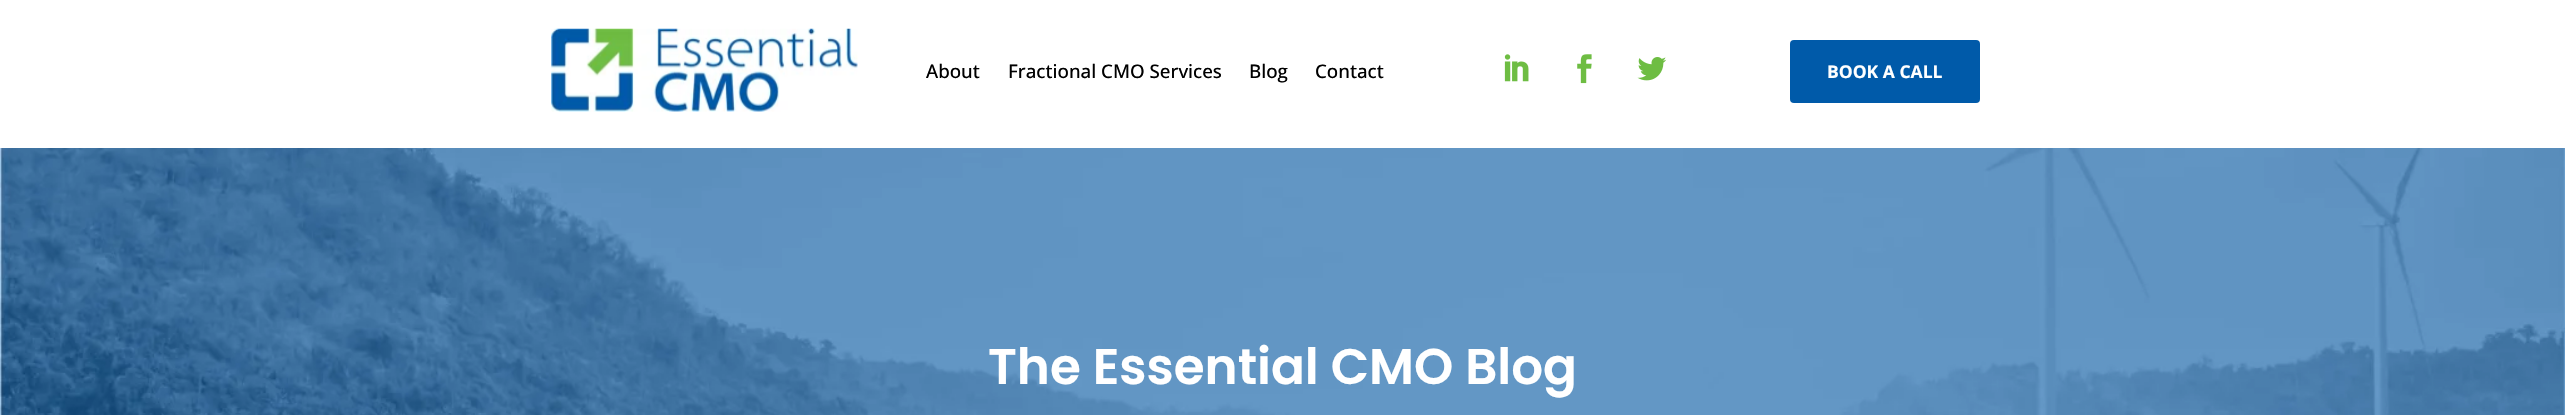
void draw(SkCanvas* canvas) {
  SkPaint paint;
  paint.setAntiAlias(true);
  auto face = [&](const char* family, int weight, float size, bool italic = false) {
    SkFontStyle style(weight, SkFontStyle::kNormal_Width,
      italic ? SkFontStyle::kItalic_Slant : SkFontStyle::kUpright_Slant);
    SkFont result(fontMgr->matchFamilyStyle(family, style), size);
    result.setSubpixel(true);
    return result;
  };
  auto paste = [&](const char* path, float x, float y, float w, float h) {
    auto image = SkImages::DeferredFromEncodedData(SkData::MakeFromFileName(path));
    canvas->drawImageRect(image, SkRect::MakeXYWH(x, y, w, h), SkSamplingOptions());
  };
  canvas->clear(0xffffffff);
  paste("img/1.png", 551, 28, 307, 84);
  paste("img/2.png", 1504, 54, 25, 28);
  paste("img/3.png", 1577, 54, 15, 30);
  paste("img/4.png", 1637, 57, 30, 24);
  paint.setColor(0xff005aa9);
  canvas->drawRoundRect(SkRect::MakeXYWH(1790, 40, 190, 63), 4, 4, paint);
  paste("img/5.png", 0, 148, 2565, 267);
  auto f0 = face("Open Sans", 500, 18.75f);
  paint.setColor(0xff000000);
  {
    const struct { const char* s; float x, y; } items[] = {
      {"About", 926, 78},
      {"Fractional CMO Services", 1008, 78},
      {"Blog", 1249, 78},
      {"Contact", 1315, 78},
    };
    for (auto [s, x, y] : items) {
      canvas->drawString(s, x, y, f0, paint);
    }
  }
  auto f1 = face("Open Sans", 700, 17.5f);
  paint.setColor(0xffffffff);
  canvas->drawString("BOOK A CALL", 1827, 78, f1, paint);
  auto f2 = face("Poppins", 600, 50);
  canvas->drawString("The Essential CMO Blog", 988, 384, f2, paint);
}
